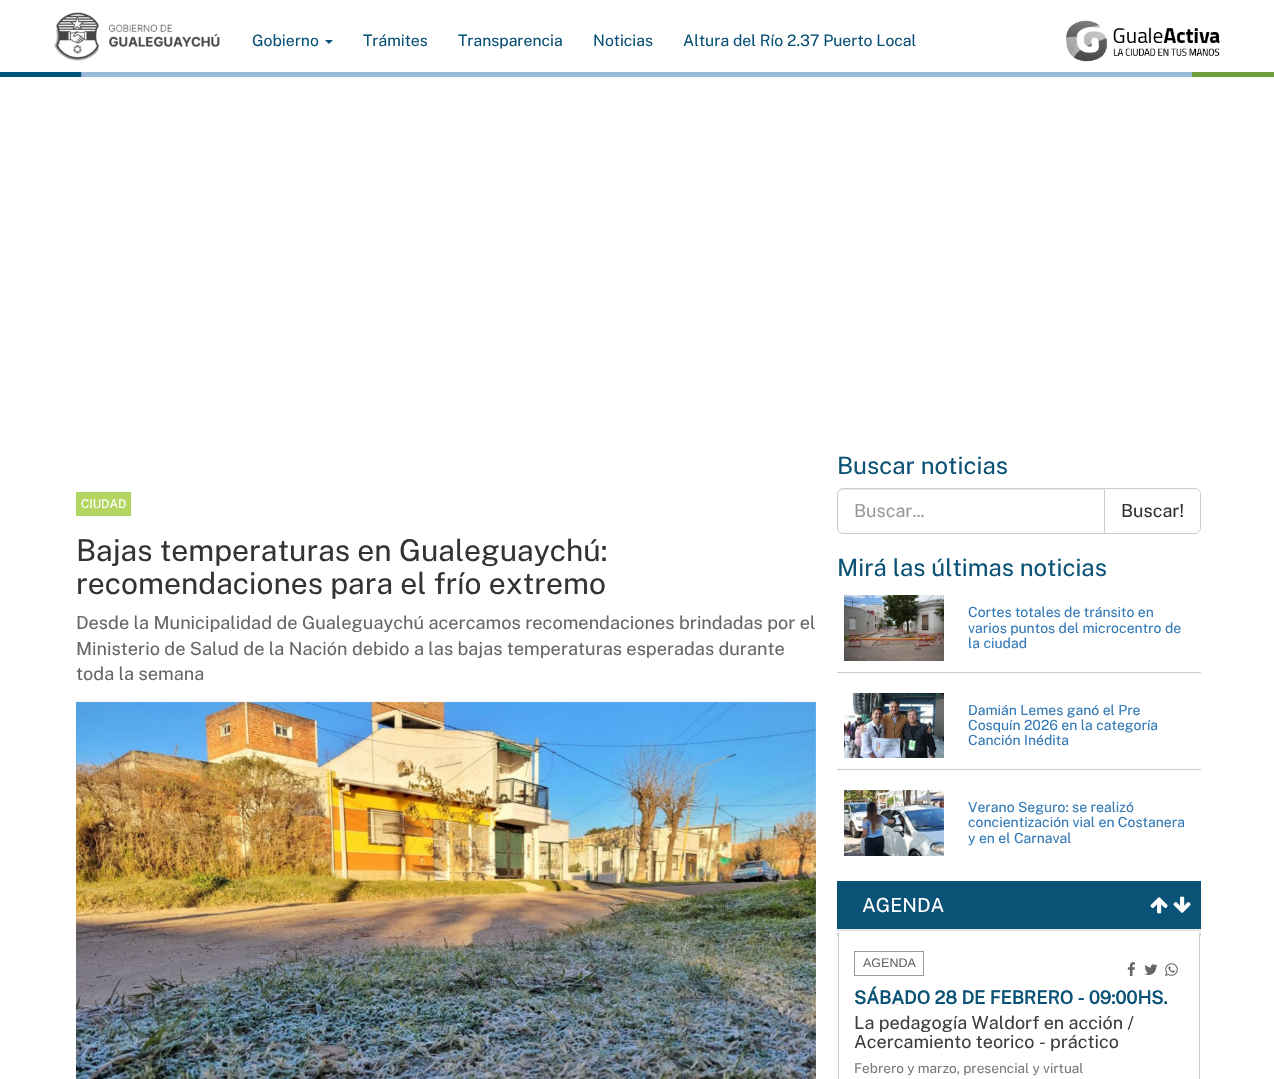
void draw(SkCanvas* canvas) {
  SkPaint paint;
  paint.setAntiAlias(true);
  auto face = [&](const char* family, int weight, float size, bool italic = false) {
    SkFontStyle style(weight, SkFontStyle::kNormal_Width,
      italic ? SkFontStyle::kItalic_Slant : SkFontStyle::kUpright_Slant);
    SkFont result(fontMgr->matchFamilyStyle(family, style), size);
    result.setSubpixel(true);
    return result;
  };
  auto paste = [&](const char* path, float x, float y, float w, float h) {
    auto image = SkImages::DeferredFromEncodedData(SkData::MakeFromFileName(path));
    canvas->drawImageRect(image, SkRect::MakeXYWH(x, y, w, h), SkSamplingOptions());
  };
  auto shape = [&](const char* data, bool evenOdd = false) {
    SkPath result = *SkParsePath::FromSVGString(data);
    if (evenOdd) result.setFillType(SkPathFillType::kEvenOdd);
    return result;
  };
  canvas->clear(0xffffffff);
  paste("img/1.png", 54, 12, 166, 49);
  paint.setColor(0xff0a5276);
  canvas->drawPath(shape("M325 40H333L329 44Z"), paint);
  paste("img/2.png", 1066, 20, 154, 42);
  paste("img/3.png", 0, 72, 1274, 5);
  paint.setColor(0xffb3d661);
  canvas->drawRect(SkRect::MakeXYWH(76, 492, 55, 24), paint);
  paste("img/4.png", 76, 701, 740, 378);
  paint.setStroke(true);
  paint.setStrokeWidth(1);
  paint.setColor(0xffcccccc);
  canvas->drawPath(shape("M1104.5 488.5H1195C1198 488.5 1200.5 491 1200.5 494V528C1200.5 531 1198 533.5 1195 533.5H1104.5Z"), paint);
  paint.setStroke(false);
  paint.setColor(0xffffffff);
  canvas->drawPath(shape("M843 488H1105V534H843C839.5 534 837 531.5 837 528V494C837 490.5 839.5 488 843 488Z"), paint);
  paint.setColor(0xffececec);
  canvas->drawPath(shape("M843 490H1104V489H843C840 489 838 492 838 495C838 492 840 490 843 490Z"), paint);
  paint.setStroke(true);
  paint.setColor(0xffcccccc);
  canvas->drawPath(shape("M843 488.5H1104.5V533.5H843C840 533.5 837.5 531 837.5 528V494C837.5 491 840 488.5 843 488.5Z"), paint);
  paint.setStroke(false);
  canvas->drawRect(SkRect::MakeXYWH(837, 672, 364, 1), paint);
  paste("img/5.png", 844, 595, 100, 66);
  canvas->drawRect(SkRect::MakeXYWH(837, 769, 364, 1), paint);
  paste("img/6.png", 844, 693, 100, 65);
  paste("img/7.png", 844, 790, 100, 66);
  paint.setColor(0xff0a5276);
  canvas->drawRect(SkRect::MakeXYWH(837, 881, 364, 48), paint);
  paste("img/8.png", 1150, 897, 18, 17);
  paste("img/9.png", 1173, 896, 18, 17);
  paint.setColor(0xffe7e7e7);
  canvas->drawRect(SkRect::MakeXYWH(837, 929, 364, 2), paint);
  paint.setColor(0xffcccccc);
  canvas->drawPath(shape("M840 931H1198C1199 931 1201 933 1201 934C1201 936 1199 938 1198 938H840C839 938 837 936 837 934C837 933 839 931 840 931ZM840 931H1198C1200 931 1201 936 1198 937H840C837 936 838 931 840 931Z", true), paint);
  paint.setColor(0xffffffff);
  canvas->drawRoundRect(SkRect::MakeXYWH(838, 931, 362, 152), 4, 4, paint);
  paint.setColor(0xffcccccc);
  canvas->drawPath(shape("M842 931H1196C1198 931 1200 933 1200 935V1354C1200 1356 1198 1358 1196 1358H842C840 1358 838 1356 838 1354V935C838 933 840 931 842 931ZM842 931H1196C1198 931 1199 933 1199 935V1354C1199 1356 1198 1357 1196 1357H842C840 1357 839 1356 839 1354V935C839 933 840 931 842 931Z", true), paint);
  paint.setColor(0xffffffff);
  canvas->drawPath(shape("M842 931C840 931 839 933 839 935V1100H1199V935C1199 933 1198 931 1196 931Z"), paint);
  paint.setStroke(true);
  paint.setColor(0xff999999);
  canvas->drawRect(SkRect::MakeXYWH(854.5f, 951.5f, 69, 24), paint);
  paste("img/10.png", 1127, 962, 8, 15);
  paste("img/11.png", 1144, 964, 14, 11);
  paste("img/12.png", 1165, 963, 13, 13);
  auto f0 = face("Public Sans", 100, 15.75f);
  paint.setStroke(false);
  paint.setColor(0xff0a5276);
  {
    const struct { const char* s; float x, y; } items[] = {
      {"Gobierno", 252, 46},
      {"Trámites", 363, 46},
      {"Transparencia", 458, 46},
      {"Noticias", 593, 46},
      {"Altura del Río 2.37 Puerto Local", 683, 46},
    };
    for (auto [s, x, y] : items) {
      canvas->drawString(s, x, y, f0, paint);
    }
  }
  auto f1 = face("Public Sans", 100, 12);
  paint.setColor(0xffffffff);
  canvas->drawString("CIUDAD", 81, 508, f1, paint);
  auto f2 = face("Public Sans", 100, 30);
  paint.setColor(0xff333333);
  canvas->drawString("Bajas temperaturas en Gualeguaychú:", 76, 561, f2, paint);
  canvas->drawString("recomendaciones para el frío extremo", 76, 594, f2, paint);
  auto f3 = face("Public Sans", 100, 18.15f);
  paint.setColor(0xff666666);
  {
    const struct { const char* s; float x, y; } items[] = {
      {"Desde la Municipalidad de Gualeguaychú acercamos recomendaciones brindadas por el", 76, 629},
      {"Ministerio de Salud de la Nación debido a las bajas temperaturas esperadas durante", 76, 655},
      {"toda la semana", 76, 680},
    };
    for (auto [s, x, y] : items) {
      canvas->drawString(s, x, y, f3, paint);
    }
  }
  auto f4 = face("Public Sans", 100, 24);
  paint.setColor(0xff0a5276);
  canvas->drawString("Buscar noticias", 837, 474, f4, paint);
  auto f5 = face("Public Sans", 100, 18);
  paint.setColor(0xff999999);
  canvas->drawString("Buscar...", 854, 517, f5, paint);
  paint.setColor(0xff333333);
  canvas->drawString("Buscar!", 1121, 517, f5, paint);
  paint.setColor(0xff0a5276);
  canvas->drawString("Mirá las últimas noticias", 837, 576, f4, paint);
  auto f6 = face("Public Sans", 100, 14);
  paint.setColor(0xff337ab7);
  {
    const struct { const char* s; float x, y; } items[] = {
      {"Cortes totales de tránsito en", 968, 617},
      {"varios puntos del microcentro de", 968, 633},
      {"la ciudad", 968, 648},
      {"Damián Lemes ganó el Pre", 968, 715},
      {"Cosquín 2026 en la categoría", 968, 730},
      {"Canción Inédita", 968, 745},
      {"Verano Seguro: se realizó", 968, 812},
      {"concientización vial en Costanera", 968, 827},
      {"y en el Carnaval", 968, 843},
    };
    for (auto [s, x, y] : items) {
      canvas->drawString(s, x, y, f6, paint);
    }
  }
  auto f7 = face("Public Sans", 100, 19.5f);
  paint.setColor(0xffffffff);
  canvas->drawString("AGENDA", 862, 912, f7, paint);
  auto f8 = face("Liberation Sans", 400, 12.5f);
  paint.setColor(0xff666666);
  canvas->drawString("AGENDA", 863, 967, f8, paint);
  auto f9 = face("Public Sans", 700, 18.15f);
  paint.setColor(0xff0a5276);
  canvas->drawString("SÁBADO 28 DE FEBRERO - 09:00HS.", 854, 1004, f9, paint);
  paint.setColor(0xff3e3e3e);
  canvas->drawString("La pedagogía Waldorf en acción /", 854, 1029, f5, paint);
  canvas->drawString("Acercamiento teorico - práctico", 854, 1048, f5, paint);
  auto f10 = face("Public Sans", 100, 13.6f);
  paint.setColor(0xff7e7a76);
  canvas->drawString("Febrero y marzo, presencial y virtual", 854, 1073, f10, paint);
}
